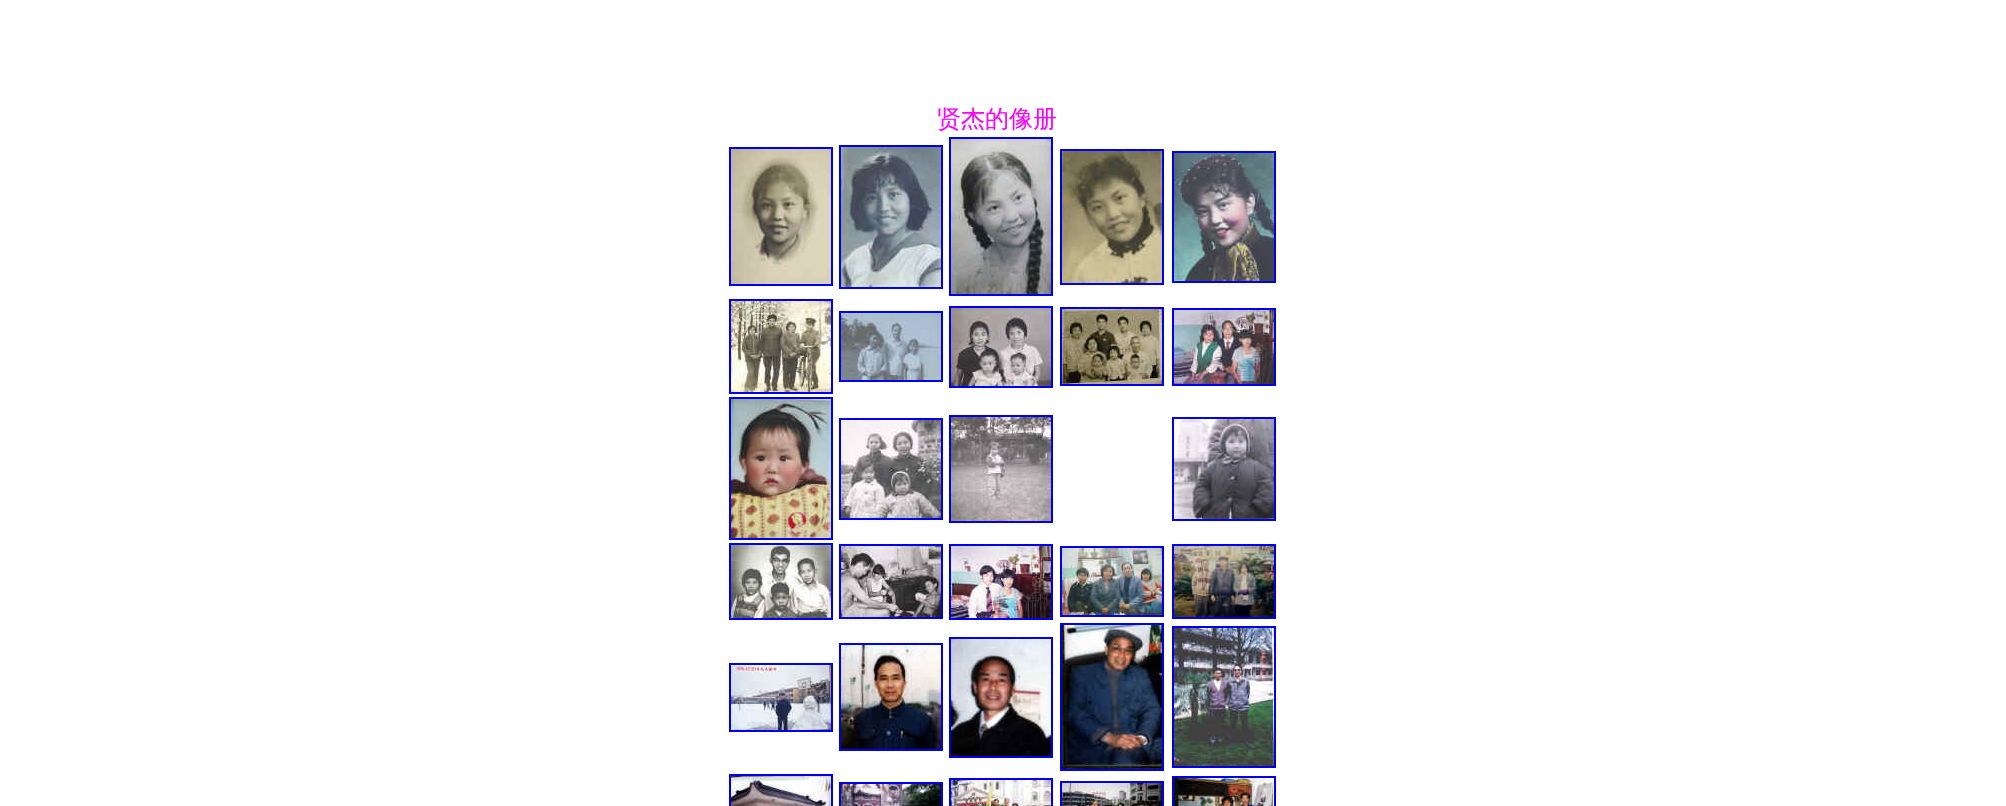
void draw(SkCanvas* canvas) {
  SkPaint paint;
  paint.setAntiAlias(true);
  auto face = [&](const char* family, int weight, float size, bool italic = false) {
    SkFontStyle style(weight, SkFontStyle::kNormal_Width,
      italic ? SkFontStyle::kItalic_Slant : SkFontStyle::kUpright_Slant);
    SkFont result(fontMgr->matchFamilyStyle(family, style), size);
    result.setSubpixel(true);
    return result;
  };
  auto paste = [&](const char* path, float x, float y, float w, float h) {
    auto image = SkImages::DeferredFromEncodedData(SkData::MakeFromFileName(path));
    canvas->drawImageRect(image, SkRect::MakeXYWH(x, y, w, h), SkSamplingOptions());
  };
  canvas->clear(0xffffffff);
  paint.setStroke(true);
  paint.setStrokeWidth(2);
  paint.setColor(0xff0000ee);
  canvas->drawRect(SkRect::MakeXYWH(730, 148, 102, 137), paint);
  paste("img/1.png", 731, 149, 100, 135);
  canvas->drawRect(SkRect::MakeXYWH(840, 146, 102, 142), paint);
  paste("img/2.png", 841, 147, 100, 140);
  canvas->drawRect(SkRect::MakeXYWH(950, 138, 102, 157), paint);
  paste("img/3.png", 951, 139, 100, 155);
  canvas->drawRect(SkRect::MakeXYWH(1061, 150, 102, 134), paint);
  paste("img/4.png", 1062, 151, 100, 132);
  canvas->drawRect(SkRect::MakeXYWH(1173, 152, 102, 130), paint);
  paste("img/5.png", 1174, 153, 100, 128);
  canvas->drawRect(SkRect::MakeXYWH(730, 300, 102, 93), paint);
  paste("img/6.png", 731, 301, 100, 91);
  canvas->drawRect(SkRect::MakeXYWH(840, 312, 102, 69), paint);
  paste("img/7.png", 841, 313, 100, 67);
  canvas->drawRect(SkRect::MakeXYWH(950, 307, 102, 80), paint);
  paste("img/8.png", 951, 308, 100, 78);
  canvas->drawRect(SkRect::MakeXYWH(1061, 308, 102, 77), paint);
  paste("img/9.png", 1062, 309, 100, 75);
  canvas->drawRect(SkRect::MakeXYWH(1173, 309, 102, 76), paint);
  paste("img/10.png", 1174, 310, 100, 74);
  canvas->drawRect(SkRect::MakeXYWH(730, 398, 102, 141), paint);
  paste("img/11.png", 731, 399, 100, 139);
  canvas->drawRect(SkRect::MakeXYWH(840, 419, 102, 100), paint);
  paste("img/12.png", 841, 420, 100, 98);
  canvas->drawRect(SkRect::MakeXYWH(950, 416, 102, 106), paint);
  paste("img/13.png", 951, 417, 100, 104);
  canvas->drawRect(SkRect::MakeXYWH(1173, 418, 102, 102), paint);
  paste("img/14.png", 1174, 419, 100, 100);
  canvas->drawRect(SkRect::MakeXYWH(730, 544, 102, 75), paint);
  paste("img/15.png", 731, 545, 100, 73);
  canvas->drawRect(SkRect::MakeXYWH(840, 545, 102, 73), paint);
  paste("img/16.png", 841, 546, 100, 71);
  canvas->drawRect(SkRect::MakeXYWH(950, 545, 102, 74), paint);
  paste("img/17.png", 951, 546, 100, 72);
  canvas->drawRect(SkRect::MakeXYWH(1061, 547, 102, 69), paint);
  paste("img/18.png", 1062, 548, 100, 67);
  canvas->drawRect(SkRect::MakeXYWH(1173, 545, 102, 73), paint);
  paste("img/19.png", 1174, 546, 100, 71);
  canvas->drawRect(SkRect::MakeXYWH(730, 664, 102, 67), paint);
  paste("img/20.png", 731, 665, 100, 65);
  canvas->drawRect(SkRect::MakeXYWH(840, 644, 102, 106), paint);
  paste("img/21.png", 841, 645, 100, 104);
  canvas->drawRect(SkRect::MakeXYWH(950, 638, 102, 119), paint);
  paste("img/22.png", 951, 639, 100, 117);
  canvas->drawRect(SkRect::MakeXYWH(1061, 624, 102, 146), paint);
  paste("img/23.png", 1062, 625, 100, 144);
  canvas->drawRect(SkRect::MakeXYWH(1173, 627, 102, 140), paint);
  paste("img/24.png", 1174, 628, 100, 138);
  canvas->drawRect(SkRect::MakeXYWH(730, 775, 102, 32), paint);
  paste("img/25.png", 731, 776, 100, 30);
  canvas->drawRect(SkRect::MakeXYWH(840, 783, 102, 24), paint);
  paste("img/26.png", 841, 784, 100, 22);
  canvas->drawRect(SkRect::MakeXYWH(950, 779, 102, 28), paint);
  paste("img/27.png", 951, 780, 100, 26);
  canvas->drawRect(SkRect::MakeXYWH(1061, 782, 102, 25), paint);
  paste("img/28.png", 1062, 783, 100, 23);
  canvas->drawRect(SkRect::MakeXYWH(1173, 777, 102, 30), paint);
  paste("img/29.png", 1174, 778, 100, 28);
  auto f0 = face("WenQuanYi Zen Hei", 500, 24);
  paint.setStroke(false);
  paint.setColor(0xffff00ff);
  canvas->drawString("贤杰的像册", 937, 127, f0, paint);
}
